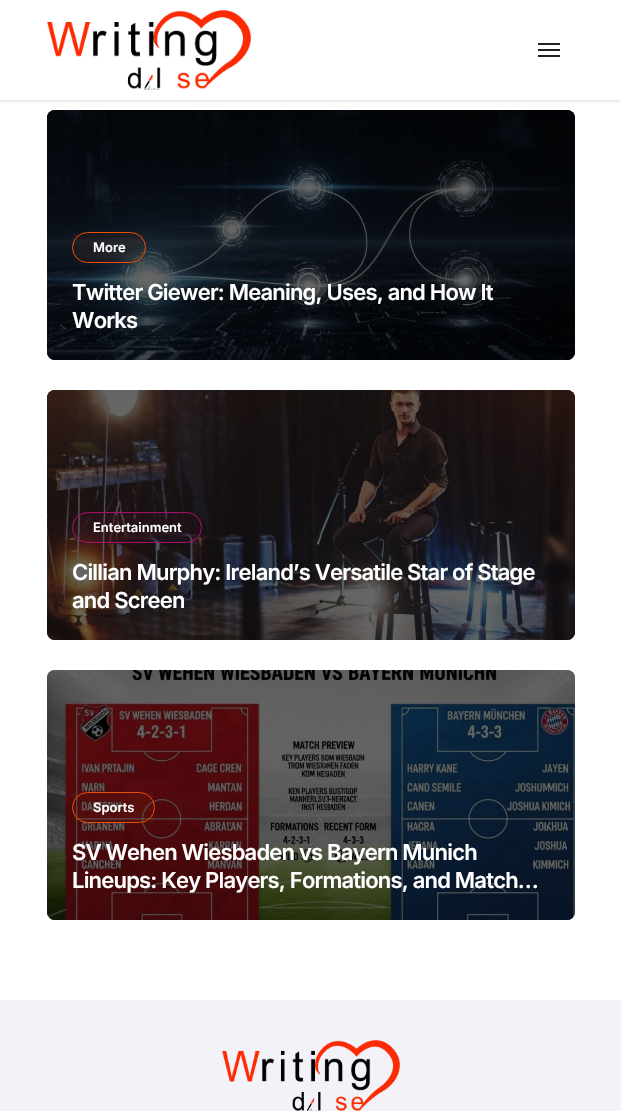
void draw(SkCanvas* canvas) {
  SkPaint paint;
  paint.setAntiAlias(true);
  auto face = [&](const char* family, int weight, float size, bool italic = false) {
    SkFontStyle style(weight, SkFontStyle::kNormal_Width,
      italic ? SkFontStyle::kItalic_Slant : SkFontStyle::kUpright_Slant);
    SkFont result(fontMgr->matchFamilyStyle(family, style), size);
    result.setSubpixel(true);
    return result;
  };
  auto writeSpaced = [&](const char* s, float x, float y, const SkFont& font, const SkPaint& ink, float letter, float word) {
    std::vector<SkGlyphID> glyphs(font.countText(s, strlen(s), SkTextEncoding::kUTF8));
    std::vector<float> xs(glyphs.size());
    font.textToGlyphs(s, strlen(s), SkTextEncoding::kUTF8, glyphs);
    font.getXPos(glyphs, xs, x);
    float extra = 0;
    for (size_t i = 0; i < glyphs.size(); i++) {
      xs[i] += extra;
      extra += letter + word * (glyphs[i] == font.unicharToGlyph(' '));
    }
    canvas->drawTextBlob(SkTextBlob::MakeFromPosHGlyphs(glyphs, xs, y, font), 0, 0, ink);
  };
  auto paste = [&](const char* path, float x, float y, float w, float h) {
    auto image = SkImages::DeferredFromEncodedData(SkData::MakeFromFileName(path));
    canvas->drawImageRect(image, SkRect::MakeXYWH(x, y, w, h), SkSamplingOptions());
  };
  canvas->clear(0xffffffff);
  paint.setColor(0x26000000);
  paint.setMaskFilter(SkMaskFilter::MakeBlur(kNormal_SkBlurStyle, 1.5f));
  canvas->drawRect(SkRect::MakeXYWH(0, 1, 621, 100), paint);
  paint.setMaskFilter(nullptr);
  paint.setColor(0xffffffff);
  canvas->drawRect(SkRect::MakeXYWH(0, 0, 621, 100), paint);
  paste("img/1.png", 47, 10, 204, 80);
  {
    const struct { float x, y, w, h; SkColor color; } items[] = {
      {538, 43, 22, 2, 0xff212121},
      {538, 49, 22, 2, 0xff212121},
      {538, 55, 22, 2, 0xff212121},
    };
    for (auto [x, y, w, h, color] : items) {
      paint.setColor(color);
      canvas->drawRect(SkRect::MakeXYWH(x, y, w, h), paint);
    }
  }
  paint.setColor(0xff333333);
  canvas->drawRoundRect(SkRect::MakeXYWH(47, 110, 528, 250), 8, 8, paint);
  paste("img/2.png", 47, 110, 528, 250);
  paint.setColor(0x99000000);
  canvas->drawRoundRect(SkRect::MakeXYWH(47, 110, 528, 250), 8, 8, paint);
  paint.setStroke(true);
  paint.setStrokeWidth(1);
  paint.setColor(0xffea4e00);
  canvas->drawRoundRect(SkRect::MakeXYWH(72.5f, 232.5f, 73, 30), 15, 15, paint);
  paint.setStroke(false);
  paint.setColor(0x0dea4e00);
  canvas->drawRect(SkRect::MakeXYWH(73, 233, 72, 29), paint);
  paint.setColor(0xff333333);
  canvas->drawRoundRect(SkRect::MakeXYWH(47, 390, 528, 250), 8, 8, paint);
  paste("img/3.png", 47, 390, 528, 250);
  paint.setColor(0x99000000);
  canvas->drawRoundRect(SkRect::MakeXYWH(47, 390, 528, 250), 8, 8, paint);
  paint.setStroke(true);
  paint.setColor(0xffa90e6d);
  canvas->drawRoundRect(SkRect::MakeXYWH(72.5f, 512.5f, 129, 30), 15, 15, paint);
  paint.setStroke(false);
  paint.setColor(0x0da90e6d);
  canvas->drawRect(SkRect::MakeXYWH(73, 513, 128, 29), paint);
  paint.setColor(0xff333333);
  canvas->drawRoundRect(SkRect::MakeXYWH(47, 670, 528, 250), 8, 8, paint);
  paste("img/4.png", 47, 670, 528, 250);
  paint.setColor(0x99000000);
  canvas->drawRoundRect(SkRect::MakeXYWH(47, 670, 528, 250), 8, 8, paint);
  paint.setStroke(true);
  paint.setColor(0xffea4e00);
  canvas->drawRoundRect(SkRect::MakeXYWH(72.5f, 792.5f, 82, 30), 15, 15, paint);
  paint.setStroke(false);
  paint.setColor(0x0dea4e00);
  canvas->drawRect(SkRect::MakeXYWH(73, 793, 81, 29), paint);
  paint.setColor(0xfff2f2f8);
  canvas->drawRect(SkRect::MakeXYWH(0, 1000, 621, 111), paint);
  paste("img/5.png", 222, 1040, 178, 71);
  auto f0 = face("Inter", 600, 13);
  paint.setColor(0xffffffff);
  canvas->drawString("More", 93, 252, f0, paint);
  auto f1 = face("Inter", 600, 22);
  writeSpaced("Twitter Giewer: Meaning, Uses, and How It", 72, 300, f1, paint, -0.8f, 0);
  writeSpaced("Works", 72, 328, f1, paint, -0.8f, 0);
  canvas->drawString("Entertainment", 93, 532, f0, paint);
  writeSpaced("Cillian Murphy: Ireland’s Versatile Star of Stage", 72, 580, f1, paint, -0.8f, 0);
  writeSpaced("and Screen", 72, 608, f1, paint, -0.8f, 0);
  canvas->drawString("Sports", 93, 812, f0, paint);
  writeSpaced("SV Wehen Wiesbaden vs Bayern Munich", 72, 860, f1, paint, -0.8f, 0);
  writeSpaced("Lineups: Key Players, Formations, and Match…", 72, 888, f1, paint, -0.8f, 0);
}
